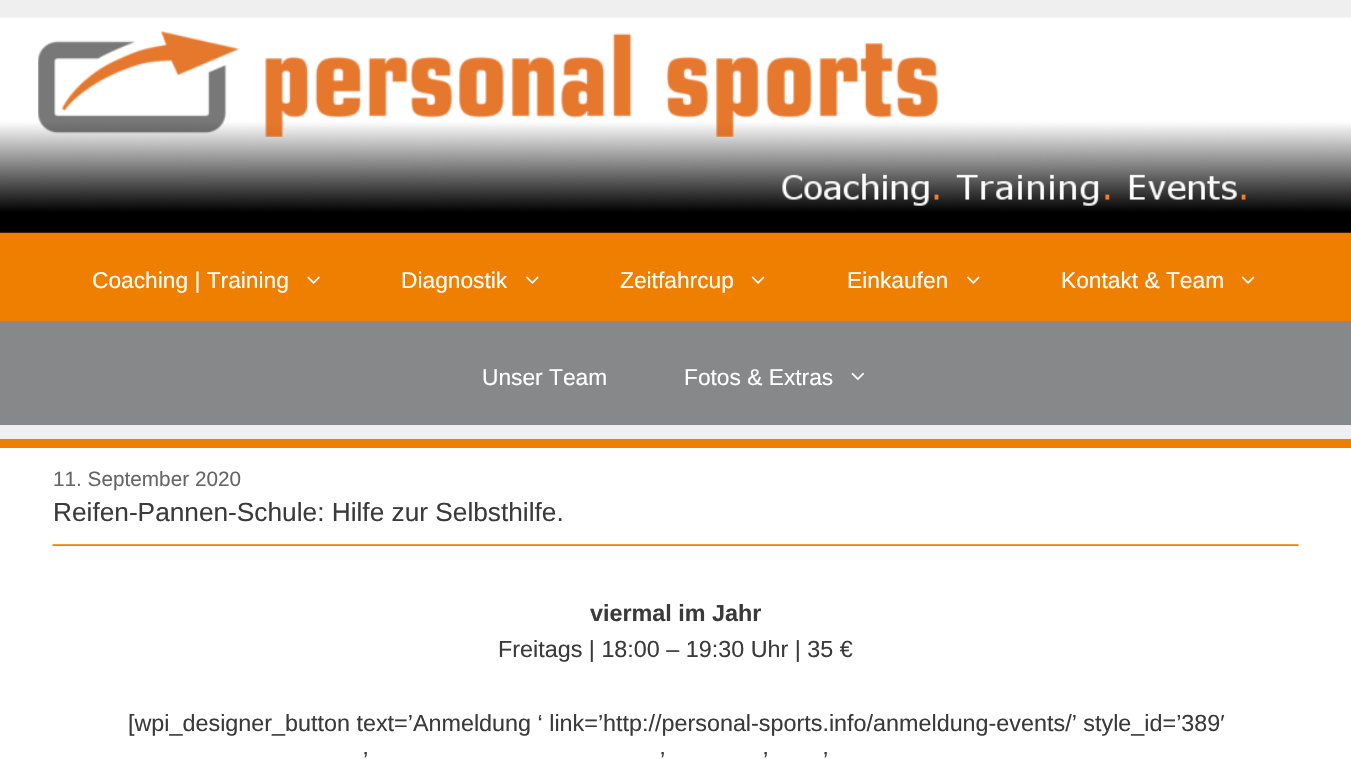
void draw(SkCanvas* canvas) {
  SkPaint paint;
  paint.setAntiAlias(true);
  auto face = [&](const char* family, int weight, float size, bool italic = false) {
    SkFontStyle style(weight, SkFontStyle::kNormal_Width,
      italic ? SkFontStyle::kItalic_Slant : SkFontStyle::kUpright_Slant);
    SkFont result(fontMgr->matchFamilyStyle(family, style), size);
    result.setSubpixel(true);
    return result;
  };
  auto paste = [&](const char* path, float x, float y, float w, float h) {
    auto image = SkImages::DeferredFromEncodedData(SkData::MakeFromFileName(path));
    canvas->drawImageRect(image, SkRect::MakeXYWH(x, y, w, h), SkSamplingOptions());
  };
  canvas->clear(0xffefefef);
  paint.setColor(0xffee7f01);
  canvas->drawRect(SkRect::MakeXYWH(0, 232, 1351, 89), paint);
  paste("img/1.png", 0, 17, 1351, 216);
  paint.setColor(0xff87888a);
  canvas->drawRect(SkRect::MakeXYWH(0, 321, 1351, 104), paint);
  paste("img/2.png", 307, 276, 13, 8);
  paste("img/3.png", 526, 276, 13, 8);
  paste("img/4.png", 751, 276, 14, 8);
  paste("img/3.png", 967, 276, 13, 8);
  paste("img/4.png", 1241, 276, 14, 8);
  paste("img/5.png", 851, 372, 13, 9);
  paint.setColor(0xffffffff);
  canvas->drawRect(SkRect::MakeXYWH(0, 448, 1351, 311), paint);
  paint.setColor(0xffee7f01);
  canvas->drawRect(SkRect::MakeXYWH(0, 439, 1351, 9), paint);
  paste("img/6.png", 52, 544, 1247, 2);
  auto f0 = face("Liberation Sans", 400, 22.75f);
  paint.setColor(0xffffffff);
  {
    const struct { const char* s; float x, y; } items[] = {
      {"Coaching | Training", 92, 288},
      {"Diagnostik", 401, 288},
      {"Zeitfahrcup", 620, 288},
      {"Einkaufen", 847, 288},
      {"Kontakt & Team", 1061, 288},
      {"Unser Team", 482, 385},
      {"Fotos & Extras", 684, 385},
    };
    for (auto [s, x, y] : items) {
      canvas->drawString(s, x, y, f0, paint);
    }
  }
  auto f1 = face("Liberation Sans", 400, 20.75f);
  paint.setColor(0xff666666);
  canvas->drawString("11. September 2020", 53, 486, f1, paint);
  auto f2 = face("Liberation Sans", 400, 26.25f);
  paint.setColor(0xff3a3a3a);
  canvas->drawString("Reifen-Pannen-Schule: Hilfe zur Selbsthilfe.", 53, 521, f2, paint);
  auto f3 = face("Liberation Sans", 700, 23.35f);
  canvas->drawString("viermal im Jahr", 590, 621, f3, paint);
  auto f4 = face("Liberation Sans", 400, 23.35f);
  {
    const struct { const char* s; float x, y; } items[] = {
      {"Freitags | 18:00 – 19:30 Uhr | 35 €", 498, 657},
      {"[wpi_designer_button text=’Anmeldung ‘ link=’http://personal-sports.info/anmeldung-events/’ style_id=’389′", 128, 731},
      {"’", 363, 768},
      {"’", 660, 768},
      {"’", 763, 768},
      {"’", 823, 768},
    };
    for (auto [s, x, y] : items) {
      canvas->drawString(s, x, y, f4, paint);
    }
  }
}
